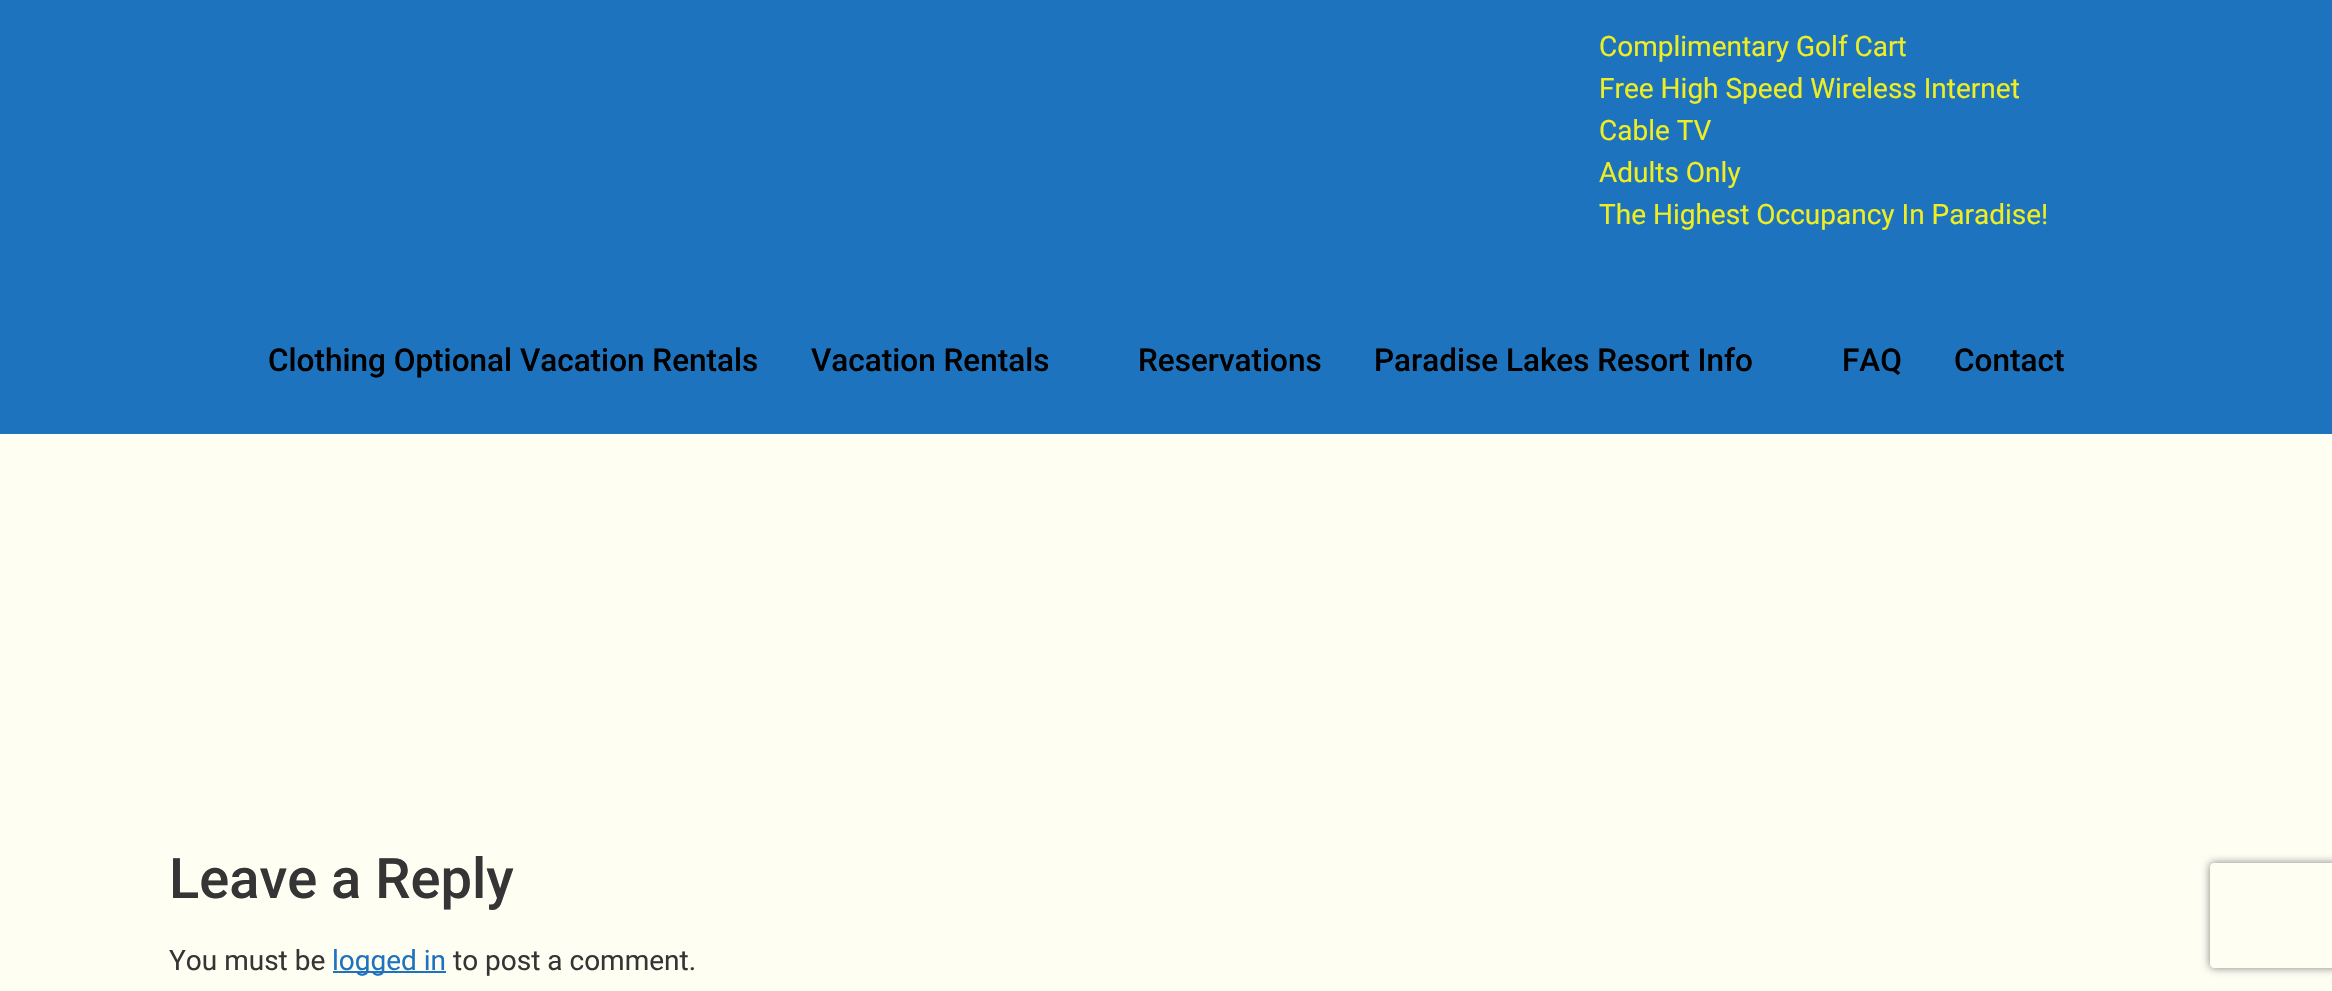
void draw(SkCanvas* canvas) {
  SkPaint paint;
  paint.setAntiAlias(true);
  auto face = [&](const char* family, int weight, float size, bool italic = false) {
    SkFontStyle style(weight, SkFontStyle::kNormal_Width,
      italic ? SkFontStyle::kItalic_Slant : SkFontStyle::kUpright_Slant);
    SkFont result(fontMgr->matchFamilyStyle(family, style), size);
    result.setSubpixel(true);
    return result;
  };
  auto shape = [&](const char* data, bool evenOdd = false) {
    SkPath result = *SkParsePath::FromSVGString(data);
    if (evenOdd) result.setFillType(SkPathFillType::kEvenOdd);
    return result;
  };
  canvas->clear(0xfffffef3);
  paint.setColor(0xff1e73be);
  canvas->drawRect(SkRect::MakeXYWH(0, 0, 2332, 434), paint);
  canvas->drawRect(SkRect::MakeXYWH(333, 971, 113, 2), paint);
  canvas->save();
  canvas->clipPath(shape("M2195 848H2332V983H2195ZM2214 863H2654C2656 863 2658 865 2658 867V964C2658 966 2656 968 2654 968H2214C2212 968 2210 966 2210 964V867C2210 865 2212 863 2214 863Z", true), true);
  paint.setColor(0xff808080);
  paint.setMaskFilter(SkMaskFilter::MakeBlur(kNormal_SkBlurStyle, 4.5f));
  canvas->drawRoundRect(SkRect::MakeXYWH(2210, 863, 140, 105), 4, 4, paint);
  paint.setMaskFilter(nullptr);
  canvas->restore();
  auto f0 = face("Roboto", 400, 28);
  paint.setColor(0xffeeee22);
  {
    const struct { const char* s; float x, y; } items[] = {
      {"Complimentary Golf Cart", 1599, 56},
      {"Free High Speed Wireless Internet", 1599, 98},
      {"Cable TV", 1599, 140},
      {"Adults Only", 1599, 182},
      {"The Highest Occupancy In Paradise!", 1599, 224},
    };
    for (auto [s, x, y] : items) {
      canvas->drawString(s, x, y, f0, paint);
    }
  }
  auto f1 = face("Roboto", 500, 31.5f);
  paint.setColor(0xff000000);
  {
    const struct { const char* s; float x, y; } items[] = {
      {"Clothing Optional Vacation Rentals", 268, 371},
      {"Vacation Rentals", 811, 371},
      {"Reservations", 1138, 371},
      {"Paradise Lakes Resort Info", 1374, 371},
      {"FAQ", 1842, 371},
      {"Contact", 1954, 371},
    };
    for (auto [s, x, y] : items) {
      canvas->drawString(s, x, y, f1, paint);
    }
  }
  auto f2 = face("Roboto", 500, 56);
  paint.setColor(0xff353535);
  canvas->drawString("Leave a Reply", 169, 898, f2, paint);
  canvas->drawString("You must be", 169, 970, f0, paint);
  paint.setColor(0xff1e73be);
  canvas->drawString("logged in", 332, 970, f0, paint);
  paint.setColor(0xff353535);
  canvas->drawString("to post a comment.", 453, 970, f0, paint);
}
